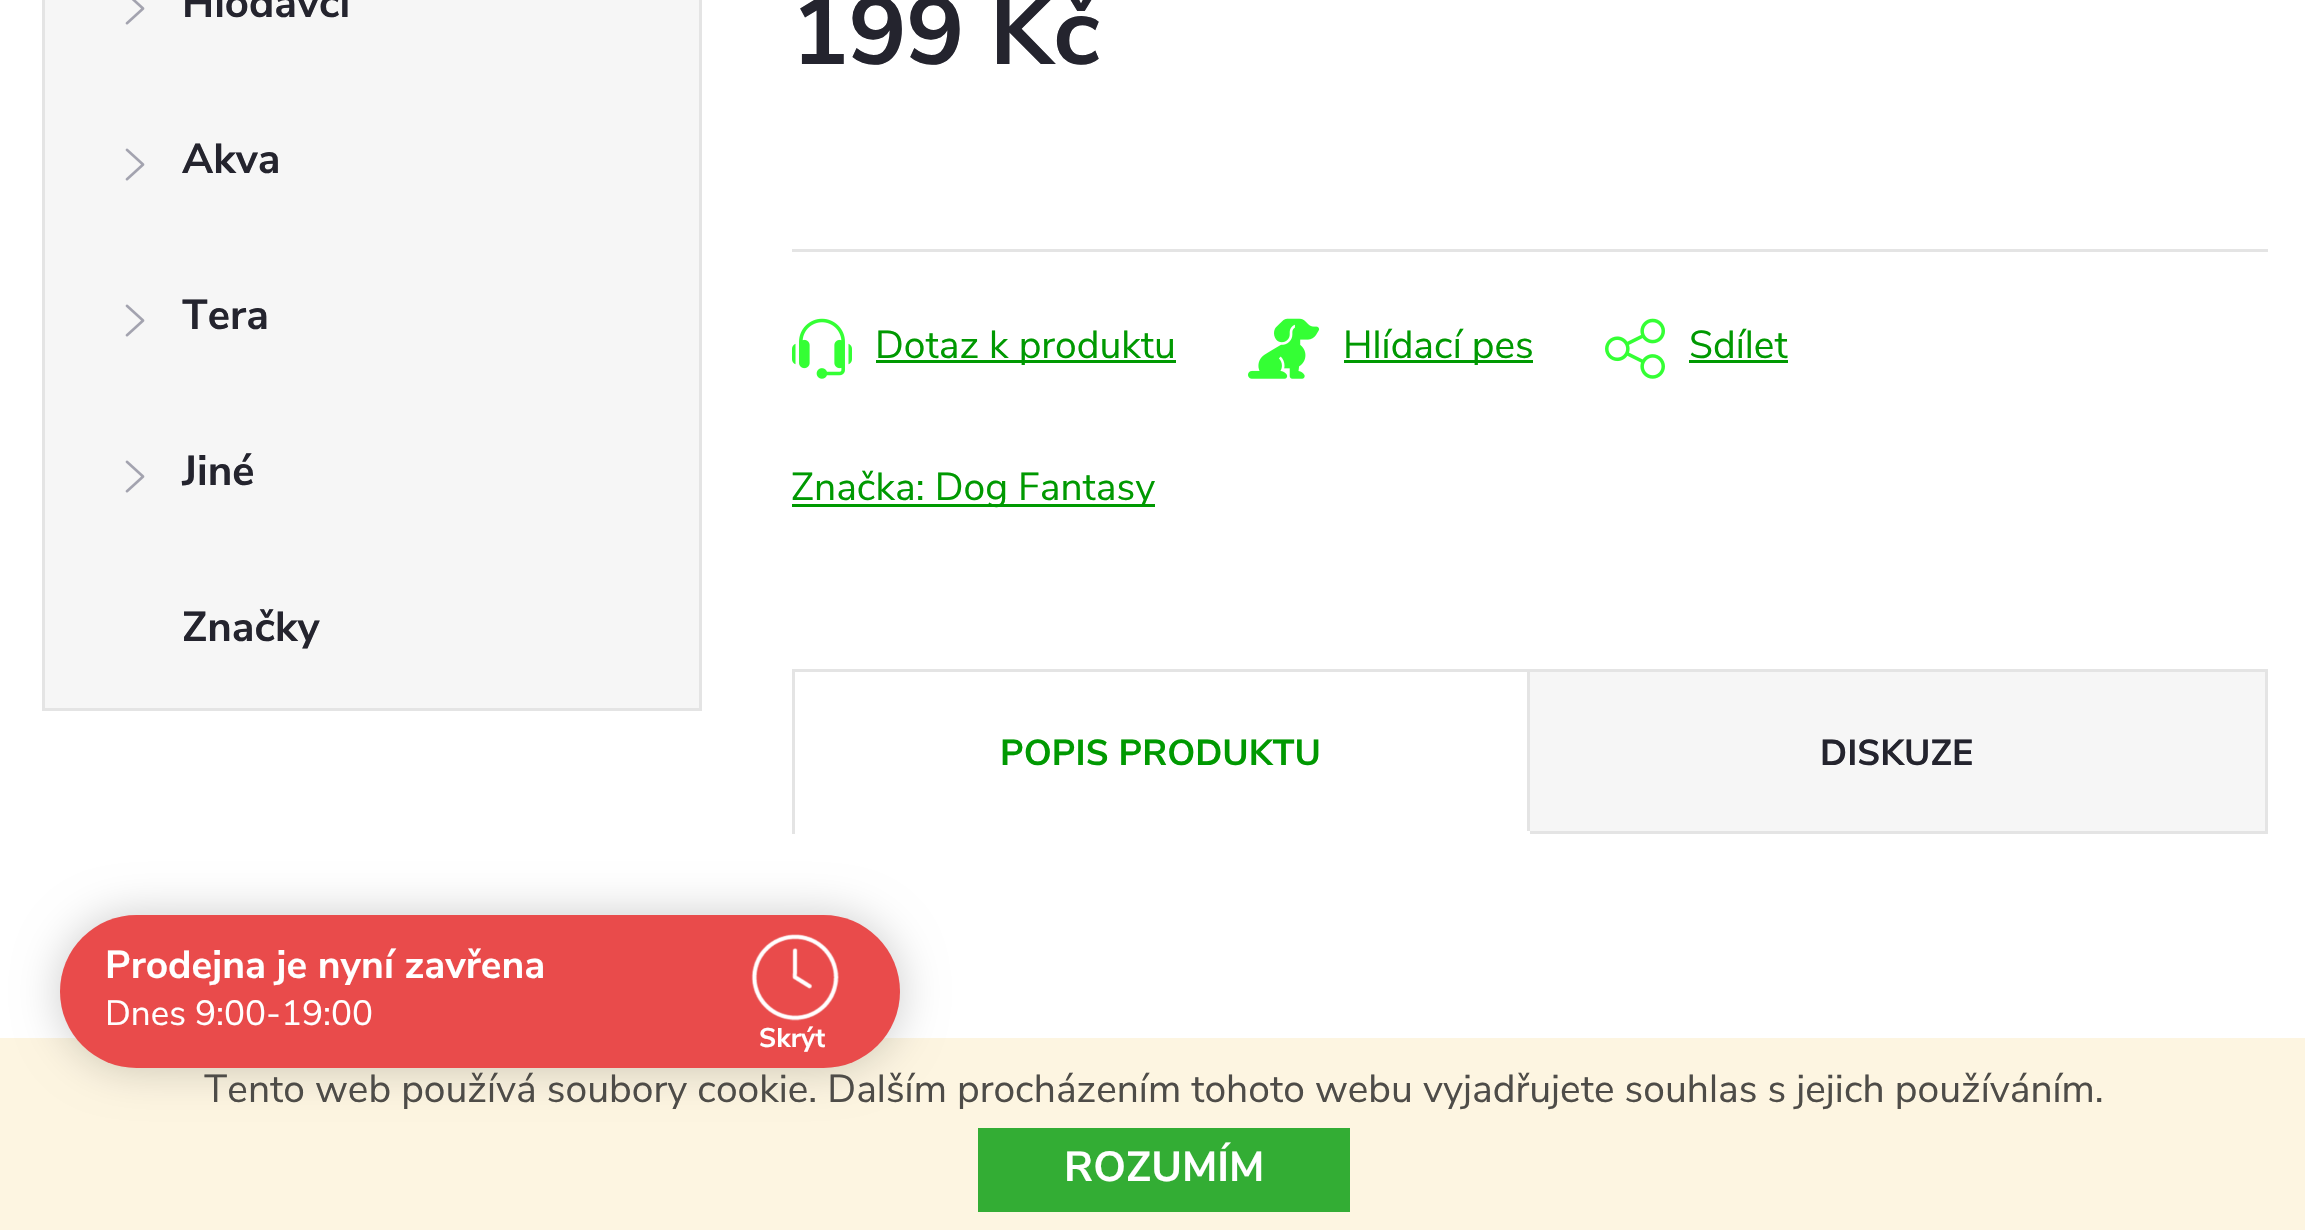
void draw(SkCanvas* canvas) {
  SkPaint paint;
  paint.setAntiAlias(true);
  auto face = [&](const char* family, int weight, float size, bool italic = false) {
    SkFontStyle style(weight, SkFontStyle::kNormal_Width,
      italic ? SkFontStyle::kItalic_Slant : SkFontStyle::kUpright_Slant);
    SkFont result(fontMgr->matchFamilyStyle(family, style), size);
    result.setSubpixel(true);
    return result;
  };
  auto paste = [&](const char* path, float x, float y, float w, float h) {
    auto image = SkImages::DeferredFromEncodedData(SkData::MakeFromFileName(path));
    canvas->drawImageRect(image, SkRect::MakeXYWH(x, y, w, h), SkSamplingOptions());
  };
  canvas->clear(0xffffffff);
  paint.setColor(0xfff6f6f6);
  canvas->drawRect(SkRect::MakeXYWH(43.5f, -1.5f, 657, 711), paint);
  paint.setStroke(true);
  paint.setStrokeWidth(3);
  paint.setColor(0xffe4e4e4);
  canvas->drawRect(SkRect::MakeXYWH(43.5f, -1.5f, 657, 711), paint);
  paste("img/1.png", 125, 0, 20, 25);
  paste("img/2.png", 125, 148, 20, 33);
  paste("img/2.png", 125, 304, 20, 33);
  paste("img/2.png", 125, 460, 20, 33);
  paint.setStroke(false);
  canvas->drawRect(SkRect::MakeXYWH(792, 249, 1476, 3), paint);
  paste("img/3.png", 792, 318, 60, 61);
  paint.setColor(0xff009901);
  canvas->drawRect(SkRect::MakeXYWH(876, 360, 300, 3), paint);
  paste("img/4.png", 1248, 318, 72, 61);
  canvas->drawRect(SkRect::MakeXYWH(1344, 360, 189, 3), paint);
  paste("img/5.png", 1605, 318, 60, 61);
  {
    const struct { float x, y, w, h; SkColor color; } items[] = {
      {1689, 360, 99, 3, 0xff009901},
      {792, 504, 363, 3, 0xff009901},
      {1530, 672, 735, 159, 0xfff6f6f6},
      {792, 669, 1476, 3, 0xffe4e4e4},
      {792, 669, 3, 165, 0xffe4e4e4},
      {1527, 672, 3, 162, 0xffe4e4e4},
      {1527, 831, 3, 3, 0xffffffff},
      {2265, 672, 3, 162, 0xffe4e4e4},
      {1530, 831, 738, 3, 0xffe4e4e4},
      {0, 1038, 2305, 192, 0xccfdf3da},
    };
    for (auto [x, y, w, h, color] : items) {
      paint.setColor(color);
      canvas->drawRect(SkRect::MakeXYWH(x, y, w, h), paint);
    }
  }
  paint.setColor(0x33000000);
  paint.setMaskFilter(SkMaskFilter::MakeBlur(kNormal_SkBlurStyle, 22.5f));
  canvas->drawRoundRect(SkRect::MakeXYWH(60, 915, 840, 153), 76.5f, 76.5f, paint);
  paint.setMaskFilter(nullptr);
  paint.setColor(0xffe94b4b);
  canvas->drawRoundRect(SkRect::MakeXYWH(60, 915, 840, 153), 76.5f, 76.5f, paint);
  paste("img/6.png", 751, 934, 88, 87);
  paint.setColor(0xff33ad34);
  canvas->drawRect(SkRect::MakeXYWH(978, 1128, 372, 84), paint);
  auto f0 = face("Nunito Sans", 700, 42);
  paint.setColor(0xff24242e);
  {
    const struct { const char* s; float x, y; } items[] = {
      {"Hlodavci", 182, 17},
      {"Akva", 182, 173},
      {"Tera", 182, 329},
      {"Jiné", 182, 485},
      {"Značky", 182, 641},
    };
    for (auto [s, x, y] : items) {
      canvas->drawString(s, x, y, f0, paint);
    }
  }
  auto f1 = face("Nunito Sans", 700, 96);
  canvas->drawString("199 Kč", 791, 64, f1, paint);
  auto f2 = face("Nunito Sans", 400, 39);
  paint.setColor(0xff009901);
  {
    const struct { const char* s; float x, y; } items[] = {
      {"Dotaz k produktu", 875, 358},
      {"Hlídací pes", 1343, 358},
      {"Sdílet", 1689, 358},
      {"Značka: Dog Fantasy", 791, 500},
    };
    for (auto [s, x, y] : items) {
      canvas->drawString(s, x, y, f2, paint);
    }
  }
  auto f3 = face("Nunito Sans", 700, 36);
  canvas->drawString("POPIS PRODUKTU", 1000, 765, f3, paint);
  paint.setColor(0xff24242e);
  canvas->drawString("DISKUZE", 1820, 765, f3, paint);
  auto f4 = face("Nunito Sans", 700, 39);
  paint.setColor(0xffffffff);
  canvas->drawString("Prodejna je nyní zavřena", 105, 978, f4, paint);
  auto f5 = face("Nunito Sans", 400, 35);
  canvas->drawString("Dnes 9:00-19:00", 105, 1025, f5, paint);
  auto f6 = face("Nunito Sans", 700, 27);
  canvas->drawString("Skrýt", 759, 1047, f6, paint);
  paint.setColor(0xff4e4c48);
  canvas->drawString("Tento web používá soubory cookie. Dalším procházením tohoto webu vyjadřujete souhlas s jejich používáním.", 204, 1102, f2, paint);
  paint.setColor(0xffffffff);
  canvas->drawString("ROZUMÍM", 1064, 1181, f0, paint);
}
